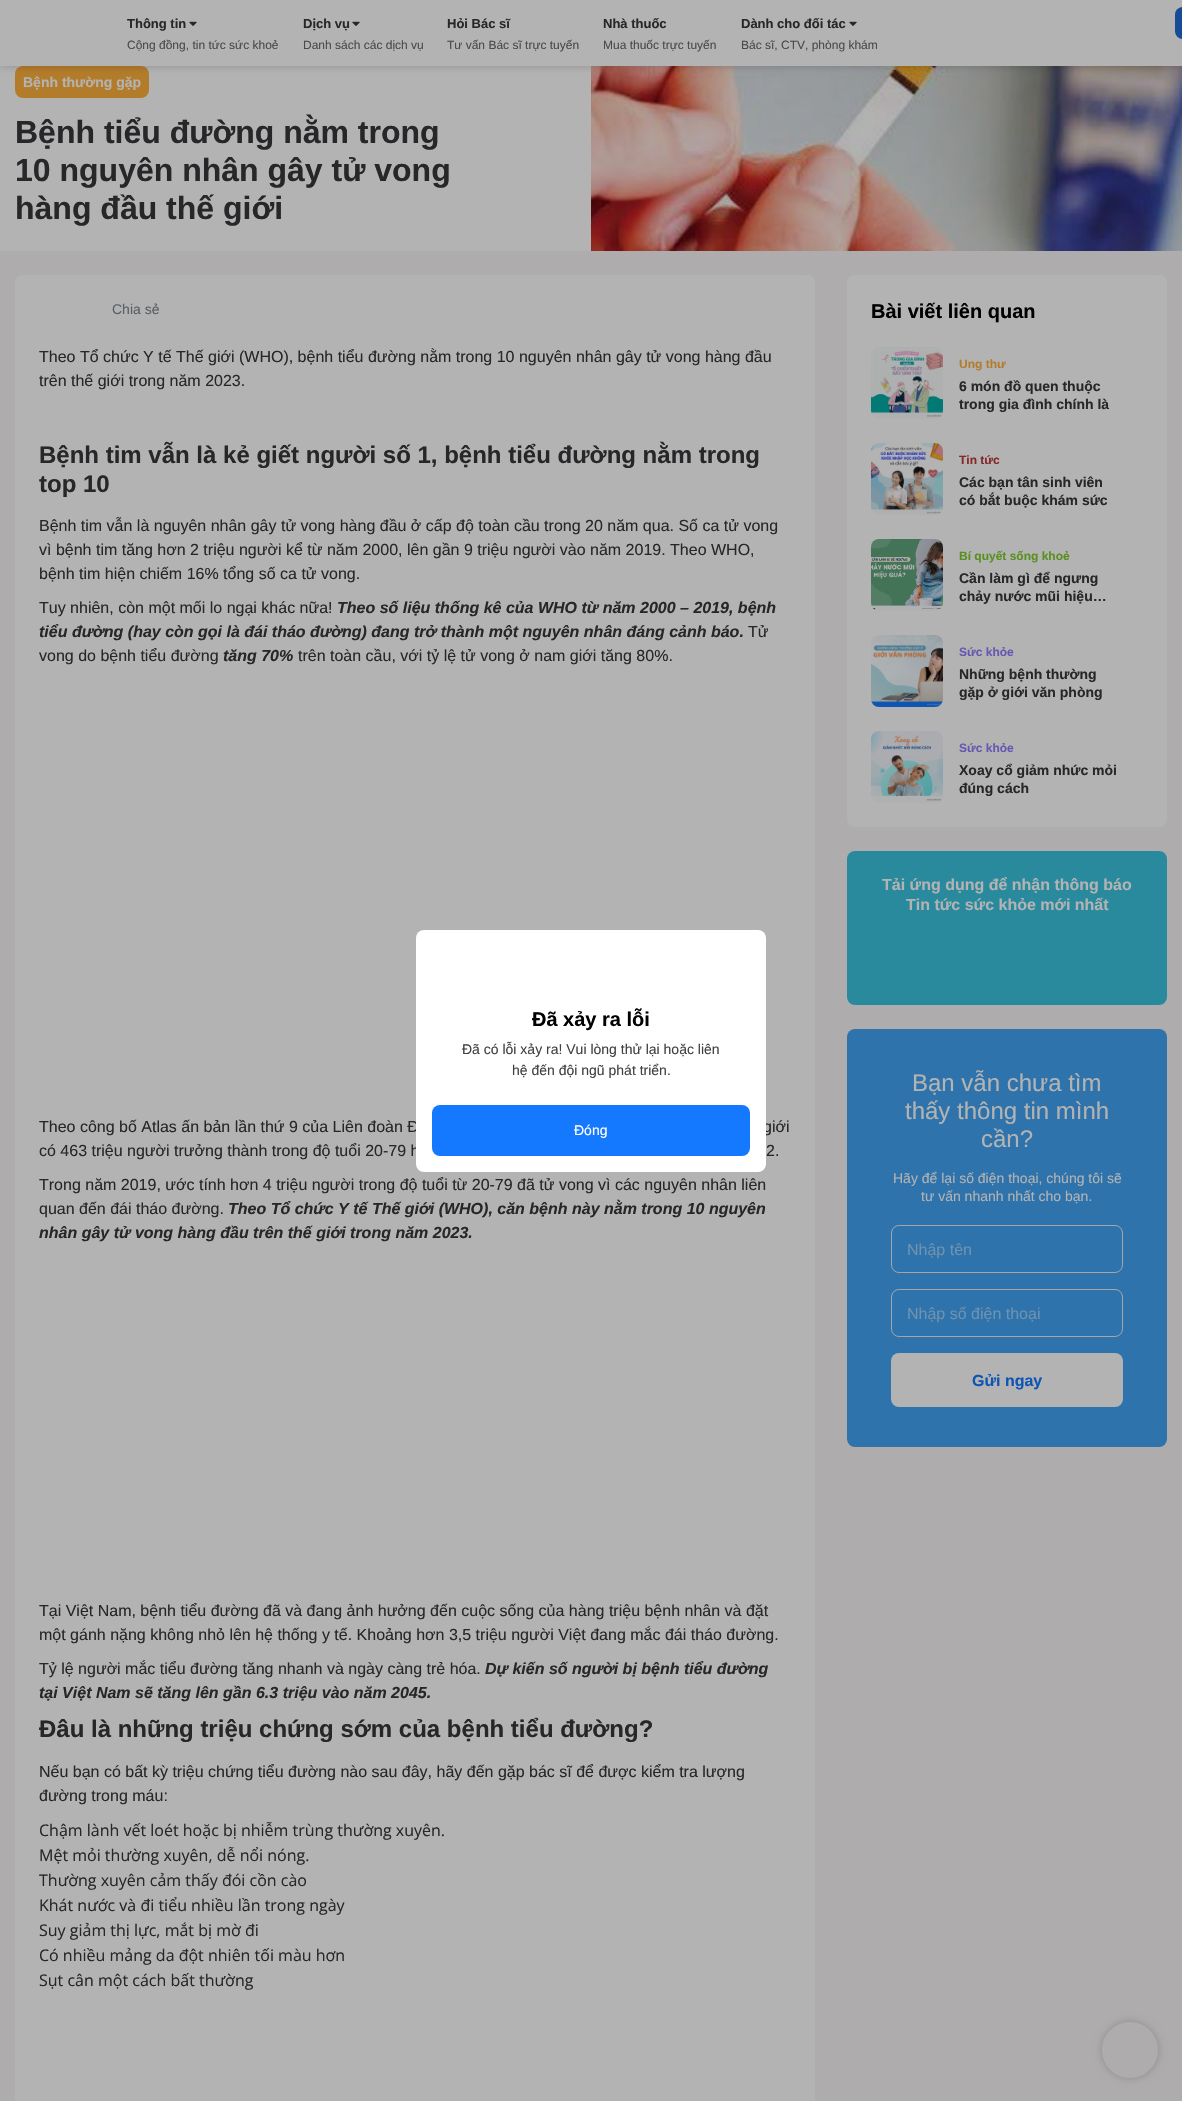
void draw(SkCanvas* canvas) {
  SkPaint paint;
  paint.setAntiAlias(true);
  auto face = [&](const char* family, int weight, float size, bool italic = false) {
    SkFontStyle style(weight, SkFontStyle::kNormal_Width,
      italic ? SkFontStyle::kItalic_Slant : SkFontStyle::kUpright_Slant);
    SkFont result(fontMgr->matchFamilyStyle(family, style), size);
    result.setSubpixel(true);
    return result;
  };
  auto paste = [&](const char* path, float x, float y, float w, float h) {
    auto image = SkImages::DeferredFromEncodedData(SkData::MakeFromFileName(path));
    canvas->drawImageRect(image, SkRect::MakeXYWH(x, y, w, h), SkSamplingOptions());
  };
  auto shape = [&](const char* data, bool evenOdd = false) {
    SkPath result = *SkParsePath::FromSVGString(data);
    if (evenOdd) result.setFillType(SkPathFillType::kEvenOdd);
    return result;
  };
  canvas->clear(0xffb3b3b3);
  paint.setColor(0xffb37c2b);
  canvas->drawRoundRect(SkRect::MakeXYWH(15, 66, 134, 32), 8, 8, paint);
  paste("img/2.png", 591, 66, 591, 185);
  paint.setColor(0x33000000);
  paint.setMaskFilter(SkMaskFilter::MakeBlur(kNormal_SkBlurStyle, 4));
  canvas->drawRect(SkRect::MakeXYWH(0, 0, 1182, 66), paint);
  paint.setMaskFilter(nullptr);
  paint.setColor(0xffb3b3b3);
  canvas->drawRect(SkRect::MakeXYWH(0, 0, 1182, 66), paint);
  paste("img/1.png", 189, 21, 8, 5);
  paste("img/1.png", 352, 21, 8, 5);
  paste("img/1.png", 849, 21, 8, 5);
  paint.setColor(0xff154c95);
  canvas->drawRoundRect(SkRect::MakeXYWH(1175, 7, 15, 32), 8, 8, paint);
  paint.setColor(0xffafacae);
  canvas->drawRect(SkRect::MakeXYWH(0, 251, 1182, 1850), paint);
  paint.setColor(0xffb3b3b3);
  canvas->drawRoundRect(SkRect::MakeXYWH(15, 275, 800, 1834), 8, 8, paint);
  canvas->drawRoundRect(SkRect::MakeXYWH(847, 275, 320, 552), 8, 8, paint);
  paste("img/3.png", 871, 347, 72, 72);
  paste("img/4.png", 871, 443, 72, 72);
  paste("img/5.png", 871, 539, 72, 72);
  paste("img/6.png", 871, 635, 72, 72);
  paste("img/7.png", 871, 731, 72, 72);
  paint.setColor(0xff298a9e);
  canvas->drawRoundRect(SkRect::MakeXYWH(847, 851, 320, 154), 8, 8, paint);
  paint.setColor(0xff2e73ac);
  canvas->drawRoundRect(SkRect::MakeXYWH(847, 1029, 320, 418), 8, 8, paint);
  paint.setStroke(true);
  paint.setStrokeWidth(1);
  paint.setColor(0xffa5a5a8);
  canvas->drawRoundRect(SkRect::MakeXYWH(891.5f, 1225.5f, 231, 47), 7.5f, 7.5f, paint);
  canvas->drawRoundRect(SkRect::MakeXYWH(891.5f, 1289.5f, 231, 47), 7.5f, 7.5f, paint);
  paint.setStroke(false);
  paint.setColor(0xffb3b3b3);
  canvas->drawRoundRect(SkRect::MakeXYWH(891, 1353, 232, 54), 8, 8, paint);
  canvas->save();
  canvas->clipPath(shape("M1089 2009H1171V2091H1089ZM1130 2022C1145.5 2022 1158 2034.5 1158 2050C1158 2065.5 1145.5 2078 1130 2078C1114.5 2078 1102 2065.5 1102 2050C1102 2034.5 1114.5 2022 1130 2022Z", true), true);
  paint.setColor(0x33000000);
  paint.setMaskFilter(SkMaskFilter::MakeBlur(kNormal_SkBlurStyle, 4));
  canvas->drawRoundRect(SkRect::MakeXYWH(1102, 2022, 56, 56), 28, 28, paint);
  paint.setMaskFilter(nullptr);
  canvas->restore();
  auto f0 = face("Liberation Sans", 700, 13);
  paint.setColor(0xff272729);
  canvas->drawString("Thông tin", 127, 28, f0, paint);
  auto f1 = face("Liberation Sans", 400, 12);
  paint.setColor(0xff4a4a4a);
  canvas->drawString("Cộng đồng, tin tức sức khoẻ", 127, 49, f1, paint);
  paint.setColor(0xff272729);
  canvas->drawString("Dịch vụ", 303, 28, f0, paint);
  paint.setColor(0xff4a4a4a);
  canvas->drawString("Danh sách các dịch vụ", 303, 49, f1, paint);
  paint.setColor(0xff272729);
  canvas->drawString("Hỏi Bác sĩ", 447, 28, f0, paint);
  paint.setColor(0xff4a4a4a);
  canvas->drawString("Tư vấn Bác sĩ trực tuyến", 447, 49, f1, paint);
  paint.setColor(0xff272729);
  canvas->drawString("Nhà thuốc", 603, 28, f0, paint);
  paint.setColor(0xff4a4a4a);
  canvas->drawString("Mua thuốc trực tuyến", 603, 49, f1, paint);
  paint.setColor(0xff272729);
  canvas->drawString("Dành cho đối tác", 741, 28, f0, paint);
  paint.setColor(0xff4a4a4a);
  canvas->drawString("Bác sĩ, CTV, phòng khám", 741, 49, f1, paint);
  auto f2 = face("Liberation Sans", 700, 14);
  paint.setColor(0xffb3b3b3);
  canvas->drawString("Bệnh thường gặp", 23, 87, f2, paint);
  auto f3 = face("Liberation Sans", 700, 32);
  paint.setColor(0xff272729);
  {
    const struct { const char* s; float x, y; } items[] = {
      {"Bệnh tiểu đường nằm trong", 15, 143},
      {"10 nguyên nhân gây tử vong", 15, 181},
      {"hàng đầu thế giới", 15, 219},
    };
    for (auto [s, x, y] : items) {
      canvas->drawString(s, x, y, f3, paint);
    }
  }
  auto f4 = face("Liberation Sans", 400, 14);
  paint.setColor(0xff5a5f65);
  canvas->drawString("Chia sẻ", 112, 314, f4, paint);
  auto f5 = face("Liberation Sans", 400, 16);
  paint.setColor(0xff272729);
  canvas->drawString("Theo Tổ chức Y tế Thế giới (WHO), bệnh tiểu đường nằm trong 10 nguyên nhân gây tử vong hàng đầu", 39, 362, f5, paint);
  canvas->drawString("trên thế giới trong năm 2023.", 39, 386, f5, paint);
  auto f6 = face("Liberation Sans", 700, 24);
  canvas->drawString("Bệnh tim vẫn là kẻ giết người số 1, bệnh tiểu đường nằm trong", 39, 463, f6, paint);
  canvas->drawString("top 10", 39, 492, f6, paint);
  {
    const struct { const char* s; float x, y; } items[] = {
      {"Bệnh tim vẫn là nguyên nhân gây tử vong hàng đầu ở cấp độ toàn cầu trong 20 năm qua. Số ca tử vong", 39, 531},
      {"vì bệnh tim tăng hơn 2 triệu người kể từ năm 2000, lên gần 9 triệu người vào năm 2019. Theo WHO,", 39, 555},
      {"bệnh tim hiện chiếm 16% tổng số ca tử vong.", 39, 579},
      {"Tuy nhiên, còn một mối lo ngại khác nữa!", 39, 613},
    };
    for (auto [s, x, y] : items) {
      canvas->drawString(s, x, y, f5, paint);
    }
  }
  auto f7 = face("Liberation Sans", 700, 16, true);
  canvas->drawString("Theo số liệu thống kê của WHO từ năm 2000 – 2019, bệnh", 337, 613, f7, paint);
  canvas->drawString("tiểu đường (hay còn gọi là đái tháo đường) đang trở thành một nguyên nhân đáng cảnh báo.", 39, 637, f7, paint);
  canvas->drawString("Tử", 748, 637, f5, paint);
  canvas->drawString("vong do bệnh tiểu đường", 39, 661, f5, paint);
  canvas->drawString("tăng 70%", 223, 661, f7, paint);
  {
    const struct { const char* s; float x, y; } items[] = {
      {"trên toàn cầu, với tỷ lệ tử vong ở nam giới tăng 80%.", 298, 661},
      {"Theo công bố Atlas ấn bản lần thứ 9 của Liên đoàn Đ", 39, 1132},
      {"giới", 763, 1132},
      {"có 463 triệu người trưởng thành trong độ tuổi 20-79 h", 39, 1156},
      {"2.", 766, 1156},
      {"Trong năm 2019, ước tính hơn 4 triệu người trong độ tuổi từ 20-79 đã tử vong vì các nguyên nhân liên", 39, 1190},
      {"quan đến đái tháo đường.", 39, 1214},
    };
    for (auto [s, x, y] : items) {
      canvas->drawString(s, x, y, f5, paint);
    }
  }
  canvas->drawString("Theo Tổ chức Y tế Thế giới (WHO), căn bệnh này nằm trong 10 nguyên", 228, 1214, f7, paint);
  canvas->drawString("nhân gây tử vong hàng đầu trên thế giới trong năm 2023.", 39, 1238, f7, paint);
  {
    const struct { const char* s; float x, y; } items[] = {
      {"Tại Việt Nam, bệnh tiểu đường đã và đang ảnh hưởng đến cuộc sống của hàng triệu bệnh nhân và đặt", 39, 1616},
      {"một gánh nặng không nhỏ lên hệ thống y tế. Khoảng hơn 3,5 triệu người Việt đang mắc đái tháo đường.", 39, 1640},
      {"Tỷ lệ người mắc tiểu đường tăng nhanh và ngày càng trẻ hóa.", 39, 1674},
    };
    for (auto [s, x, y] : items) {
      canvas->drawString(s, x, y, f5, paint);
    }
  }
  canvas->drawString("Dự kiến số người bị bệnh tiểu đường", 485, 1674, f7, paint);
  canvas->drawString("tại Việt Nam sẽ tăng lên gần 6.3 triệu vào năm 2045.", 39, 1698, f7, paint);
  canvas->drawString("Đâu là những triệu chứng sớm của bệnh tiểu đường?", 39, 1737, f6, paint);
  canvas->drawString("Nếu bạn có bất kỳ triệu chứng tiểu đường nào sau đây, hãy đến gặp bác sĩ để được kiểm tra lượng", 39, 1777, f5, paint);
  canvas->drawString("đường trong máu:", 39, 1801, f5, paint);
  auto f8 = face("Open Sans", 400, 16);
  {
    const struct { const char* s; float x, y; } items[] = {
      {"Chậm lành vết loét hoặc bị nhiễm trùng thường xuyên.", 39, 1836},
      {"Mệt mỏi thường xuyên, dễ nổi nóng.", 39, 1861},
      {"Thường xuyên cảm thấy đói cồn cào", 39, 1886},
      {"Khát nước và đi tiểu nhiều lần trong ngày", 39, 1911},
      {"Suy giảm thị lực, mắt bị mờ đi", 39, 1936},
      {"Có nhiều mảng da đột nhiên tối màu hơn", 39, 1961},
      {"Sụt cân một cách bất thường", 39, 1986},
    };
    for (auto [s, x, y] : items) {
      canvas->drawString(s, x, y, f8, paint);
    }
  }
  auto f9 = face("Liberation Sans", 700, 20);
  paint.setColor(0xff000000);
  canvas->drawString("Bài viết liên quan", 871, 318, f9, paint);
  auto f10 = face("Liberation Sans", 700, 12);
  paint.setColor(0xffb37c2b);
  canvas->drawString("Ung thư", 959, 368, f10, paint);
  paint.setColor(0xff272729);
  canvas->drawString("6 món đồ quen thuộc", 959, 391, f2, paint);
  canvas->drawString("trong gia đình chính là", 959, 409, f2, paint);
  paint.setColor(0xff842727);
  canvas->drawString("Tin tức", 959, 464, f10, paint);
  paint.setColor(0xff272729);
  canvas->drawString("Các bạn tân sinh viên", 959, 487, f2, paint);
  canvas->drawString("có bắt buộc khám sức", 959, 505, f2, paint);
  paint.setColor(0xff58901f);
  canvas->drawString("Bí quyết sống khoẻ", 959, 560, f10, paint);
  paint.setColor(0xff272729);
  canvas->drawString("Cần làm gì để ngưng", 959, 583, f2, paint);
  canvas->drawString("chảy nước mũi hiệu…", 959, 601, f2, paint);
  paint.setColor(0xff6558b3);
  canvas->drawString("Sức khỏe", 959, 656, f10, paint);
  paint.setColor(0xff272729);
  canvas->drawString("Những bệnh thường", 959, 679, f2, paint);
  canvas->drawString("gặp ở giới văn phòng", 959, 697, f2, paint);
  paint.setColor(0xff6558b3);
  canvas->drawString("Sức khỏe", 959, 752, f10, paint);
  paint.setColor(0xff272729);
  canvas->drawString("Xoay cổ giảm nhức mỏi", 959, 775, f2, paint);
  canvas->drawString("đúng cách", 959, 793, f2, paint);
  auto f11 = face("Liberation Sans", 700, 16);
  paint.setColor(0xffb3b3b3);
  canvas->drawString("Tải ứng dụng để nhận thông báo", 882, 890, f11, paint);
  canvas->drawString("Tin tức sức khỏe mới nhất", 906, 910, f11, paint);
  auto f12 = face("Liberation Sans", 400, 24);
  {
    const struct { const char* s; float x, y; } items[] = {
      {"Bạn vẫn chưa tìm", 912, 1091},
      {"thấy thông tin mình", 905, 1119},
      {"cần?", 981, 1147},
    };
    for (auto [s, x, y] : items) {
      canvas->drawString(s, x, y, f12, paint);
    }
  }
  canvas->drawString("Hãy để lại số điện thoại, chúng tôi sẽ", 893, 1183, f4, paint);
  canvas->drawString("tư vấn nhanh nhất cho bạn.", 921, 1201, f4, paint);
  paint.setColor(0xff6f92af);
  canvas->drawString("Nhập tên", 907, 1255, f5, paint);
  canvas->drawString("Nhập số điện thoại", 907, 1319, f5, paint);
  paint.setColor(0xff0e55b3);
  canvas->drawString("Gửi ngay", 972, 1386, f11, paint);
  paint.setColor(0xffffffff);
  canvas->drawRoundRect(SkRect::MakeXYWH(416, 930, 350, 242), 8, 8, paint);
  paint.setColor(0xff000000);
  canvas->drawString("Đã xảy ra lỗi", 532, 1026, f9, paint);
  paint.setColor(0xff414141);
  canvas->drawString("Đã có lỗi xảy ra! Vui lòng thử lại hoặc liên", 462, 1054, f4, paint);
  canvas->drawString("hệ đến đội ngũ phát triển.", 512, 1075, f4, paint);
  paint.setColor(0xff1479ff);
  canvas->drawRoundRect(SkRect::MakeXYWH(432, 1105, 318, 51), 8, 8, paint);
  paint.setColor(0xffffffff);
  canvas->drawString("Đóng", 574, 1135, f4, paint);
}
